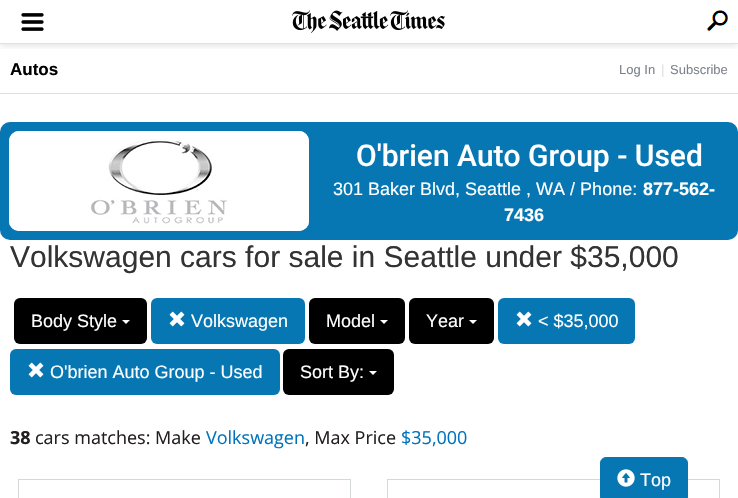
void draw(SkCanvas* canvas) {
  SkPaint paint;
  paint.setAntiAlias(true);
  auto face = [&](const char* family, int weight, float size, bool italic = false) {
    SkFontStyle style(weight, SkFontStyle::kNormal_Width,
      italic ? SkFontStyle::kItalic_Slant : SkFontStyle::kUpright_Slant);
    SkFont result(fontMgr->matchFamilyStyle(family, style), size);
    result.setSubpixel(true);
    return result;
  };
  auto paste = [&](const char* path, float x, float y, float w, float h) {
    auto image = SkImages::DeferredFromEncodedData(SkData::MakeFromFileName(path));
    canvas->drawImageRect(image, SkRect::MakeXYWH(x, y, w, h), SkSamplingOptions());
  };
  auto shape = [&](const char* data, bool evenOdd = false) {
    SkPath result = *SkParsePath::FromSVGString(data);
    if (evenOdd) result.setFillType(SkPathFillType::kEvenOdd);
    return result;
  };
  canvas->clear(0xffffffff);
  canvas->save();
  canvas->clipRect(SkRect::MakeXYWH(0, 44, 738, 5));
  paint.setColor(0x1a000000);
  paint.setMaskFilter(SkMaskFilter::MakeBlur(kNormal_SkBlurStyle, 3.5f));
  canvas->drawRect(SkRect::MakeXYWH(0, 2, 738, 44), paint);
  paint.setMaskFilter(nullptr);
  canvas->restore();
  paint.setColor(0xffe0e0e0);
  canvas->drawRect(SkRect::MakeXYWH(0, 43, 738, 1), paint);
  paste("img/1.png", 21, 13, 23, 18);
  paste("img/2.png", 292, 10, 153, 23);
  paste("img/3.png", 707, 10, 21, 21);
  canvas->drawRect(SkRect::MakeXYWH(0, 93, 738, 1), paint);
  paint.setColor(0xff0777b3);
  canvas->drawRoundRect(SkRect::MakeXYWH(0, 122, 738, 118), 10, 10, paint);
  paint.setColor(0xffffffff);
  canvas->drawRoundRect(SkRect::MakeXYWH(9, 131, 300, 100), 10, 10, paint);
  paste("img/4.png", 9, 131, 300, 100);
  paint.setColor(0xff000000);
  canvas->drawRoundRect(SkRect::MakeXYWH(14, 298, 133, 46), 6, 6, paint);
  paint.setColor(0xffffffff);
  canvas->drawPath(shape("M122 320H130L126 324Z"), paint);
  paint.setColor(0xff0777b3);
  canvas->drawRoundRect(SkRect::MakeXYWH(151, 298, 154, 46), 6, 6, paint);
  paste("img/5.png", 169, 311, 16, 16);
  paint.setColor(0xff000000);
  canvas->drawRoundRect(SkRect::MakeXYWH(309, 298, 96, 46), 6, 6, paint);
  paint.setColor(0xffffffff);
  canvas->drawPath(shape("M380 320H388L384 324Z"), paint);
  paint.setColor(0xff000000);
  canvas->drawRoundRect(SkRect::MakeXYWH(409, 298, 85, 46), 6, 6, paint);
  paint.setColor(0xffffffff);
  canvas->drawPath(shape("M469 320H477L473 324Z"), paint);
  paint.setColor(0xff0777b3);
  canvas->drawRoundRect(SkRect::MakeXYWH(498, 298, 137, 46), 6, 6, paint);
  paste("img/5.png", 516, 311, 16, 16);
  canvas->drawRoundRect(SkRect::MakeXYWH(10, 349, 270, 46), 6, 6, paint);
  paste("img/5.png", 28, 362, 16, 16);
  paint.setColor(0xff000000);
  canvas->drawRoundRect(SkRect::MakeXYWH(283, 349, 111, 46), 6, 6, paint);
  paint.setColor(0xffffffff);
  canvas->drawPath(shape("M369 371H377L373 375Z"), paint);
  paint.setStroke(true);
  paint.setStrokeWidth(1);
  paint.setColor(0xffd4d8d9);
  canvas->drawRect(SkRect::MakeXYWH(18.5f, 479.5f, 332, 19), paint);
  canvas->drawRect(SkRect::MakeXYWH(387.5f, 479.5f, 332, 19), paint);
  paint.setStroke(false);
  paint.setColor(0xff0777b3);
  canvas->drawRoundRect(SkRect::MakeXYWH(600.5f, 457.5f, 87, 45), 5.5f, 5.5f, paint);
  paint.setStroke(true);
  canvas->drawRoundRect(SkRect::MakeXYWH(600.5f, 457.5f, 87, 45), 5.5f, 5.5f, paint);
  paste("img/6.png", 617, 469, 18, 18);
  auto f0 = face("Liberation Sans", 700, 17);
  paint.setStroke(false);
  paint.setColor(0xff000000);
  canvas->drawString("Autos", 10, 75, f0, paint);
  auto f1 = face("Liberation Sans", 400, 13);
  paint.setColor(0xff7e838b);
  canvas->drawString("Log In", 619, 74, f1, paint);
  paint.setColor(0xffe0e0e0);
  canvas->drawString("|", 661, 74, f1, paint);
  paint.setColor(0xff7e838b);
  canvas->drawString("Subscribe", 670, 74, f1, paint);
  auto f2 = face("Roboto", 500, 30);
  paint.setColor(0xffffffff);
  canvas->drawString("O'brien Auto Group - Used", 356, 166, f2, paint);
  auto f3 = face("Liberation Sans", 400, 18);
  canvas->drawString("301 Baker Blvd, Seattle , WA / Phone:", 333, 195, f3, paint);
  auto f4 = face("Liberation Sans", 700, 18);
  canvas->drawString("877-562-", 643, 195, f4, paint);
  canvas->drawString("7436", 504, 221, f4, paint);
  auto f5 = face("Liberation Sans", 400, 30);
  paint.setColor(0xff333333);
  canvas->drawString("Volkswagen cars for sale in Seattle under $35,000", 10, 267, f5, paint);
  paint.setColor(0xffffffff);
  {
    const struct { const char* s; float x, y; } items[] = {
      {"Body Style", 31, 327},
      {"Volkswagen", 191, 327},
      {"Model", 326, 327},
      {"Year", 426, 327},
      {"< $35,000", 538, 327},
      {"O'brien Auto Group - Used", 50, 378},
      {"Sort By:", 300, 378},
    };
    for (auto [s, x, y] : items) {
      canvas->drawString(s, x, y, f3, paint);
    }
  }
  auto f6 = face("Open Sans", 700, 18);
  paint.setColor(0xff231f20);
  canvas->drawString("38", 10, 444, f6, paint);
  auto f7 = face("Open Sans", 400, 18);
  canvas->drawString("cars matches: Make", 35, 444, f7, paint);
  paint.setColor(0xff0073bd);
  canvas->drawString("Volkswagen", 206, 444, f7, paint);
  paint.setColor(0xff231f20);
  canvas->drawString(", Max Price", 305, 444, f7, paint);
  paint.setColor(0xff0073bd);
  canvas->drawString("$35,000", 401, 444, f7, paint);
  paint.setColor(0xffffffff);
  canvas->drawString("Top", 640, 486, f3, paint);
}
